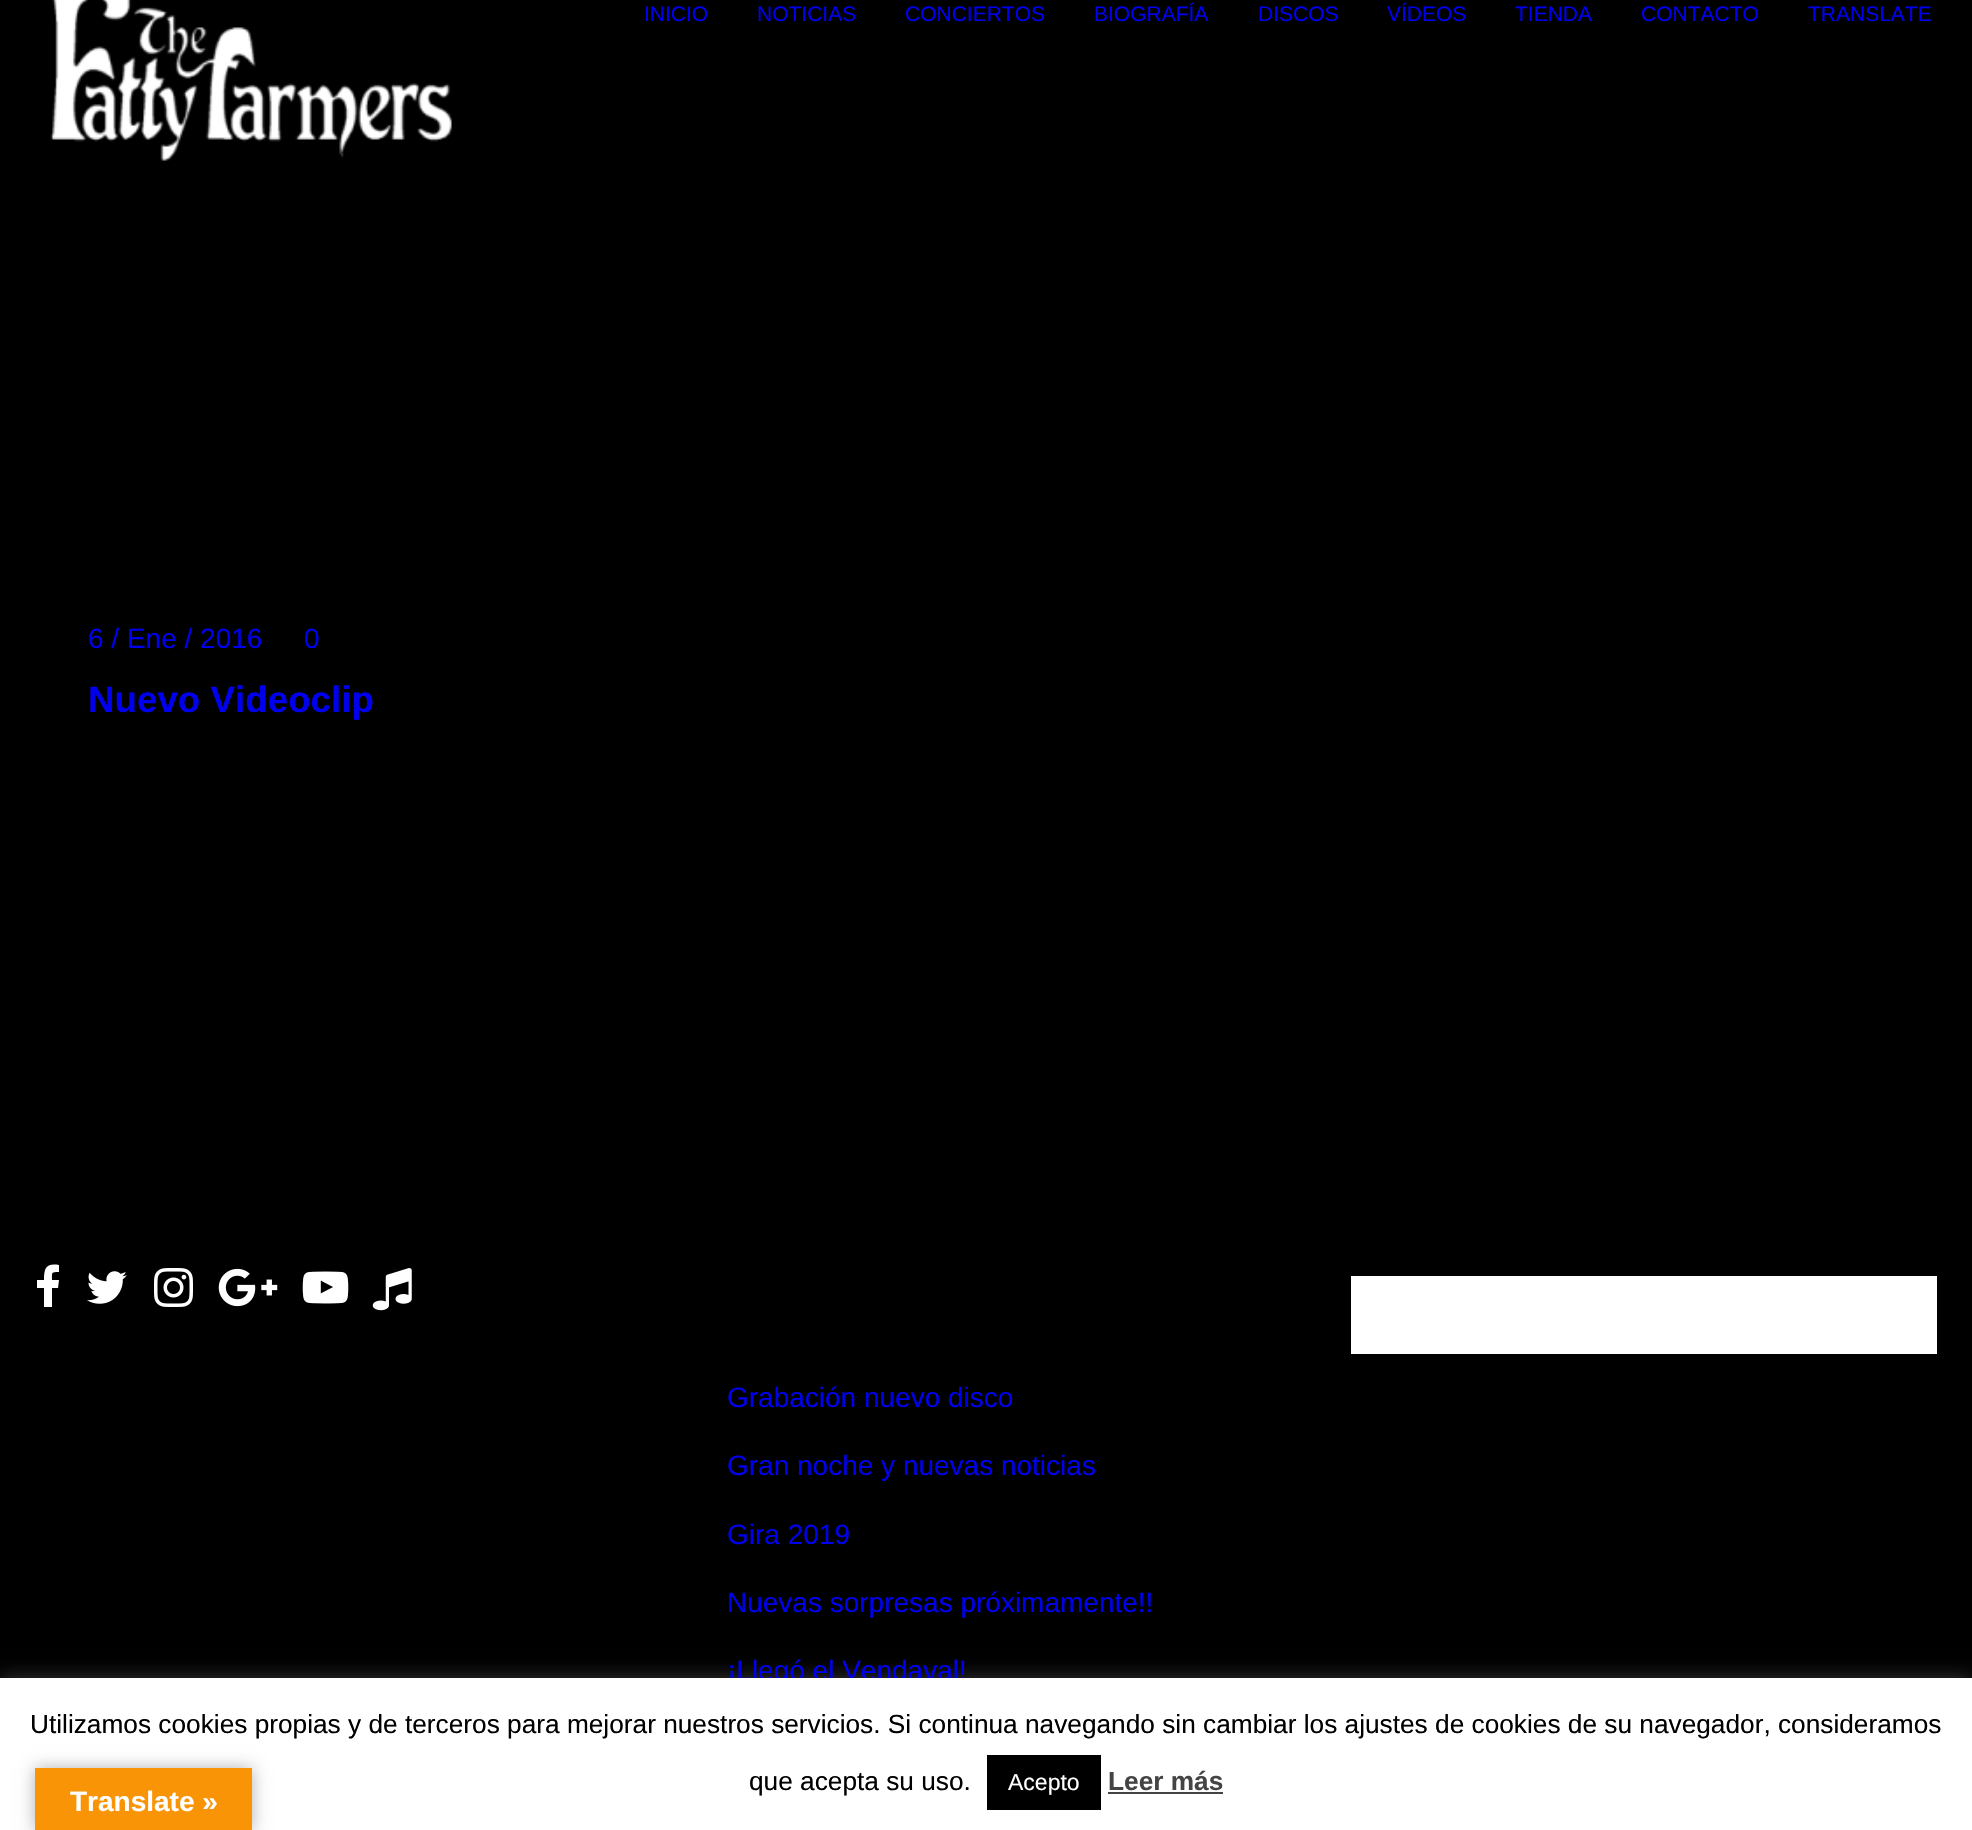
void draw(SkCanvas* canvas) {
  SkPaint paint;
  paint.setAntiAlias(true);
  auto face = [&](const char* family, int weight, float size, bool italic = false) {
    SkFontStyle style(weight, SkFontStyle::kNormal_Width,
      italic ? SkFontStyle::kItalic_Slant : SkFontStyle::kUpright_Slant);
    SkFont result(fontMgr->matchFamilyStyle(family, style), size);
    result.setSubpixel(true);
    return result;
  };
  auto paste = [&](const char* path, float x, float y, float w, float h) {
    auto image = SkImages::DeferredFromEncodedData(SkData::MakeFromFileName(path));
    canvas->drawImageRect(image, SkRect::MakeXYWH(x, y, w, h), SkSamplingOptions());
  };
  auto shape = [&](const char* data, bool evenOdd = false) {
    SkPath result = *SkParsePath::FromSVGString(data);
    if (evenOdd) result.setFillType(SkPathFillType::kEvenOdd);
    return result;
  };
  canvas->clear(0xff000000);
  paste("img/1.png", 50, 0, 402, 161);
  paint.setColor(0xffffffff);
  canvas->drawPath(shape("M59 1265C46 1263 44 1268 44 1280H37V1288H44V1307H52V1288H58L59 1280H52C52 1272 51 1272 59 1272Z"), paint);
  paste("img/2.png", 87, 1271, 40, 33);
  paste("img/3.png", 154, 1268, 39, 39);
  paste("img/4.png", 218, 1268, 60, 39);
  paste("img/5.png", 302, 1271, 47, 33);
  paste("img/6.png", 372, 1268, 40, 43);
  canvas->drawRect(SkRect::MakeXYWH(1351, 1276, 586, 78), paint);
  paint.setColor(0x4dacabab);
  paint.setMaskFilter(SkMaskFilter::MakeBlur(kNormal_SkBlurStyle, 9));
  canvas->drawRect(SkRect::MakeXYWH(0, 1677, 1972, 152), paint);
  paint.setMaskFilter(nullptr);
  auto f0 = face("Liberation Sans", 400, 21);
  paint.setColor(0xff0000ee);
  {
    const struct { const char* s; float x, y; } items[] = {
      {"INICIO", 644, 21},
      {"NOTICIAS", 757, 21},
      {"CONCIERTOS", 905, 21},
      {"BIOGRAFÍA", 1094, 21},
      {"DISCOS", 1258, 21},
      {"VÍDEOS", 1387, 21},
      {"TIENDA", 1515, 21},
      {"CONTACTO", 1641, 21},
      {"TRANSLATE", 1808, 21},
    };
    for (auto [s, x, y] : items) {
      canvas->drawString(s, x, y, f0, paint);
    }
  }
  auto f1 = face("Liberation Sans", 400, 28);
  canvas->drawString("6 / Ene / 2016", 88, 648, f1, paint);
  canvas->drawString("0", 304, 648, f1, paint);
  auto f2 = face("Liberation Sans", 700, 36.75f);
  canvas->drawString("Nuevo Videoclip", 88, 712, f2, paint);
  {
    const struct { const char* s; float x, y; } items[] = {
      {"Grabación nuevo disco", 727, 1407},
      {"Gran noche y nuevas noticias", 727, 1475},
      {"Gira 2019", 727, 1544},
      {"Nuevas sorpresas próximamente!!", 727, 1612},
      {"¡Llegó el Vendaval!", 727, 1680},
    };
    for (auto [s, x, y] : items) {
      canvas->drawString(s, x, y, f1, paint);
    }
  }
  paint.setColor(0xffffffff);
  canvas->drawRect(SkRect::MakeXYWH(0, 1678, 1972, 152), paint);
  auto f3 = face("Liberation Sans", 400, 26.25f);
  paint.setColor(0xff000000);
  canvas->drawString("Utilizamos cookies propias y de terceros para mejorar nuestros servicios. Si continua navegando sin cambiar los ajustes de cookies de su navegador, consideramos", 30, 1733, f3, paint);
  canvas->drawString("que acepta su uso.", 749, 1790, f3, paint);
  canvas->drawRect(SkRect::MakeXYWH(987, 1755, 114, 55), paint);
  auto f4 = face("Liberation Sans", 400, 23);
  paint.setColor(0xffffffff);
  canvas->drawString("Acepto", 1008, 1790, f4, paint);
  auto f5 = face("Liberation Sans", 700, 26.25f);
  paint.setColor(0xff444444);
  canvas->drawString("Leer más", 1108, 1790, f5, paint);
  canvas->drawRect(SkRect::MakeXYWH(1108, 1792, 115, 2), paint);
  paint.setColor(0x4d000000);
  paint.setMaskFilter(SkMaskFilter::MakeBlur(kNormal_SkBlurStyle, 8));
  canvas->drawRect(SkRect::MakeXYWH(35, 1768, 217, 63), paint);
  paint.setMaskFilter(nullptr);
  paint.setColor(0xfff89406);
  canvas->drawRect(SkRect::MakeXYWH(35, 1768, 217, 62), paint);
  auto f6 = face("Liberation Sans", 700, 28);
  paint.setColor(0xffffffff);
  canvas->drawString("Translate »", 70, 1811, f6, paint);
}
